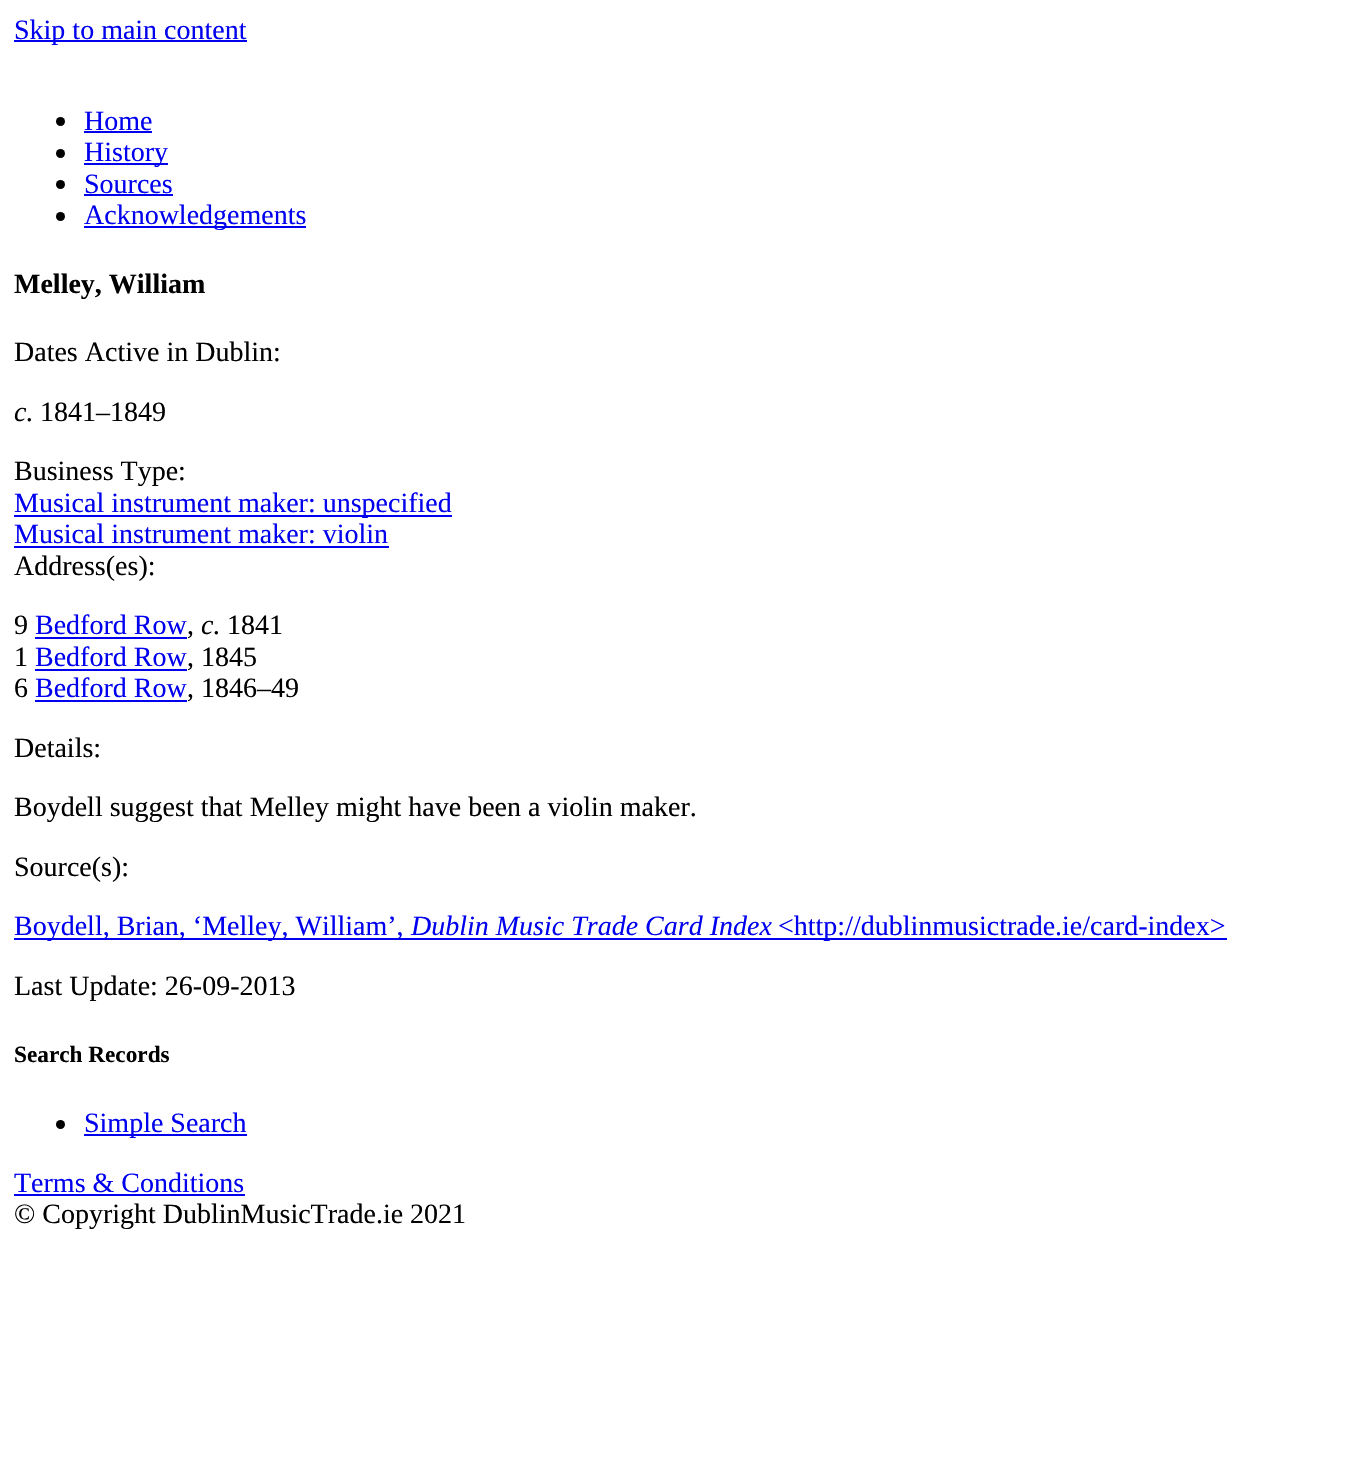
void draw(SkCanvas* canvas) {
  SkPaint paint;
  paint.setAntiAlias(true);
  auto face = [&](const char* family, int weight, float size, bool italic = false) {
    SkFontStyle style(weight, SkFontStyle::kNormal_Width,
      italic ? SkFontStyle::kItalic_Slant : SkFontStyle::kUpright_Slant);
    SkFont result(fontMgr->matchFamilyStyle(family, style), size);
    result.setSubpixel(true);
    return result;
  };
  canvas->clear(0xffffffff);
  paint.setColor(0xff0000ee);
  canvas->drawRect(SkRect::MakeXYWH(14, 40, 233, 2), paint);
  paint.setColor(0xff000000);
  canvas->drawCircle(60.5f, 121.5f, 4.5f, paint);
  paint.setColor(0xff0000ee);
  canvas->drawRect(SkRect::MakeXYWH(84, 131, 68, 2), paint);
  paint.setColor(0xff000000);
  canvas->drawCircle(60.5f, 153.5f, 4.5f, paint);
  paint.setColor(0xff0000ee);
  canvas->drawRect(SkRect::MakeXYWH(84, 163, 84, 2), paint);
  paint.setColor(0xff000000);
  canvas->drawCircle(60.5f, 184.5f, 4.5f, paint);
  paint.setColor(0xff0000ee);
  canvas->drawRect(SkRect::MakeXYWH(84, 194, 89, 2), paint);
  paint.setColor(0xff000000);
  canvas->drawCircle(60.5f, 216.5f, 4.5f, paint);
  {
    const struct { float x, y, w, h; SkColor color; } items[] = {
      {84, 226, 222, 2, 0xff0000ee},
      {14, 515, 438, 2, 0xff0000ee},
      {14, 546, 375, 2, 0xff0000ee},
      {35, 637, 152, 2, 0xff0000ee},
      {35, 669, 152, 2, 0xff0000ee},
      {35, 700, 152, 2, 0xff0000ee},
      {14, 938, 1213, 2, 0xff0000ee},
    };
    for (auto [x, y, w, h, color] : items) {
      paint.setColor(color);
      canvas->drawRect(SkRect::MakeXYWH(x, y, w, h), paint);
    }
  }
  paint.setColor(0xff000000);
  canvas->drawCircle(60.5f, 1124.5f, 4.5f, paint);
  paint.setColor(0xff0000ee);
  canvas->drawRect(SkRect::MakeXYWH(84, 1134, 163, 2), paint);
  canvas->drawRect(SkRect::MakeXYWH(14, 1194, 231, 2), paint);
  auto f0 = face("Liberation Serif", 400, 28);
  {
    const struct { const char* s; float x, y; } items[] = {
      {"Skip to main content", 14, 39},
      {"Home", 84, 130},
      {"History", 84, 161},
      {"Sources", 84, 193},
      {"Acknowledgements", 84, 224},
    };
    for (auto [s, x, y] : items) {
      canvas->drawString(s, x, y, f0, paint);
    }
  }
  auto f1 = face("Liberation Serif", 700, 28);
  paint.setColor(0xff000000);
  canvas->drawString("Melley, William", 14, 293, f1, paint);
  canvas->drawString("Dates Active in Dublin:", 14, 361, f0, paint);
  auto f2 = face("Liberation Serif", 400, 28, true);
  canvas->drawString("c.", 14, 421, f2, paint);
  canvas->drawString("1841–1849", 40, 421, f0, paint);
  canvas->drawString("Business Type:", 14, 480, f0, paint);
  paint.setColor(0xff0000ee);
  canvas->drawString("Musical instrument maker: unspecified", 14, 512, f0, paint);
  canvas->drawString("Musical instrument maker: violin", 14, 543, f0, paint);
  paint.setColor(0xff000000);
  canvas->drawString("Address(es):", 14, 575, f0, paint);
  canvas->drawString("9", 14, 634, f0, paint);
  paint.setColor(0xff0000ee);
  canvas->drawString("Bedford Row", 35, 634, f0, paint);
  paint.setColor(0xff000000);
  canvas->drawString(",", 187, 634, f0, paint);
  canvas->drawString("c.", 201, 634, f2, paint);
  canvas->drawString("1841", 227, 634, f0, paint);
  canvas->drawString("1", 14, 666, f0, paint);
  paint.setColor(0xff0000ee);
  canvas->drawString("Bedford Row", 35, 666, f0, paint);
  paint.setColor(0xff000000);
  canvas->drawString(", 1845", 187, 666, f0, paint);
  canvas->drawString("6", 14, 697, f0, paint);
  paint.setColor(0xff0000ee);
  canvas->drawString("Bedford Row", 35, 697, f0, paint);
  paint.setColor(0xff000000);
  {
    const struct { const char* s; float x, y; } items[] = {
      {", 1846–49", 187, 697},
      {"Details:", 14, 757},
      {"Boydell suggest that Melley might have been a violin maker.", 14, 816},
      {"Source(s):", 14, 876},
    };
    for (auto [s, x, y] : items) {
      canvas->drawString(s, x, y, f0, paint);
    }
  }
  paint.setColor(0xff0000ee);
  canvas->drawString("Boydell, Brian, ‘Melley, William’,", 14, 935, f0, paint);
  canvas->drawString("Dublin Music Trade Card Index", 411, 935, f2, paint);
  canvas->drawString("<http://dublinmusictrade.ie/card-index>", 778, 935, f0, paint);
  paint.setColor(0xff000000);
  canvas->drawString("Last Update: 26-09-2013", 14, 995, f0, paint);
  auto f3 = face("Liberation Serif", 700, 23.25f);
  canvas->drawString("Search Records", 14, 1062, f3, paint);
  paint.setColor(0xff0000ee);
  canvas->drawString("Simple Search", 84, 1132, f0, paint);
  canvas->drawString("Terms & Conditions", 14, 1192, f0, paint);
  paint.setColor(0xff000000);
  canvas->drawString("© Copyright DublinMusicTrade.ie 2021", 14, 1223, f0, paint);
}
